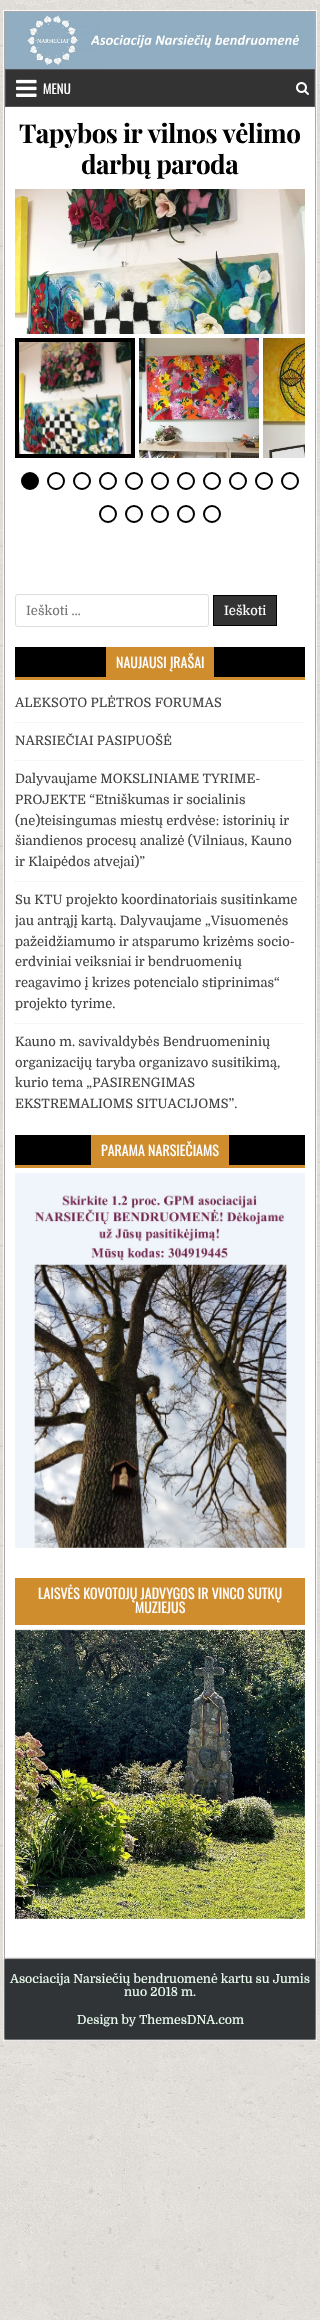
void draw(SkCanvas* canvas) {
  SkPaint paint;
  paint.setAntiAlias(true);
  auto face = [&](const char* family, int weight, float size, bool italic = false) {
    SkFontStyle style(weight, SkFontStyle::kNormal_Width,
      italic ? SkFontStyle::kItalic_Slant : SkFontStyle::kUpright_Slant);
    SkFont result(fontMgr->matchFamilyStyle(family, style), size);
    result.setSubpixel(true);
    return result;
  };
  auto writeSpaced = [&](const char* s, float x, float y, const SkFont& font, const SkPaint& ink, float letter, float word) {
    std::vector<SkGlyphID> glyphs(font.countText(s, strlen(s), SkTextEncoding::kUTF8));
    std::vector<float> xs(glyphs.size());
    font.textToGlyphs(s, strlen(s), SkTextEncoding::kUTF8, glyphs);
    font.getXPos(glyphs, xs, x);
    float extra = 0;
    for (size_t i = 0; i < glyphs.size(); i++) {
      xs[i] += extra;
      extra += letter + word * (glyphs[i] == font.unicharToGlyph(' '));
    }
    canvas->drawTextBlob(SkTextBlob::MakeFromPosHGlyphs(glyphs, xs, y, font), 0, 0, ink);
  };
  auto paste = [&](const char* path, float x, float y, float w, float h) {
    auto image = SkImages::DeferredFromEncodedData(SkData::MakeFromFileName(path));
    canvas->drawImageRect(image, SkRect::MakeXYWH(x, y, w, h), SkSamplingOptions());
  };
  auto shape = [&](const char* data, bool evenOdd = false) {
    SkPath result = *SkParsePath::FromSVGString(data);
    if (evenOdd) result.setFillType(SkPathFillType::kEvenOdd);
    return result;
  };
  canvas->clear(0xffffffff);
  paste("img/1.png", 0, 0, 320, 2320);
  paint.setStroke(true);
  paint.setStrokeWidth(1);
  paint.setColor(0xfff9f9f9);
  canvas->drawRect(SkRect::MakeXYWH(3.5f, 10.5f, 313, 2030), paint);
  paint.setColor(0xffa8a8a8);
  canvas->drawRect(SkRect::MakeXYWH(4.5f, 11.5f, 311, 2028), paint);
  paste("img/2.png", 5, 12, 310, 57);
  paint.setStroke(false);
  paint.setColor(0xff333333);
  canvas->drawRect(SkRect::MakeXYWH(5.5f, 69.5f, 309, 37), paint);
  paint.setStroke(true);
  paint.setColor(0xff555555);
  canvas->drawRect(SkRect::MakeXYWH(5.5f, 69.5f, 309, 37), paint);
  paste("img/3.png", 16, 79, 21, 18);
  paste("img/4.png", 296, 82, 13, 13);
  paint.setStroke(false);
  paint.setColor(0xffffffff);
  canvas->drawRect(SkRect::MakeXYWH(5, 107, 310, 1852), paint);
  paste("img/5.png", 15, 189, 290, 145);
  paint.setStroke(true);
  paint.setStrokeWidth(4);
  paint.setColor(0xff000000);
  canvas->drawRect(SkRect::MakeXYWH(17, 340, 116, 116), paint);
  paste("img/6.png", 19, 342, 112, 112);
  paste("img/7.png", 139, 338, 120, 120);
  paste("img/8.png", 263, 338, 42, 120);
  paint.setStroke(false);
  canvas->drawCircle(30, 481, 8, paint);
  paint.setStroke(true);
  paint.setStrokeWidth(2);
  canvas->drawCircle(30, 481, 8, paint);
  canvas->drawCircle(56, 481, 8, paint);
  canvas->drawCircle(82, 481, 8, paint);
  canvas->drawCircle(108, 481, 8, paint);
  canvas->drawCircle(134, 481, 8, paint);
  canvas->drawCircle(160, 481, 8, paint);
  canvas->drawCircle(186, 481, 8, paint);
  canvas->drawCircle(212, 481, 8, paint);
  canvas->drawCircle(238, 481, 8, paint);
  canvas->drawCircle(264, 481, 8, paint);
  canvas->drawCircle(290, 481, 8, paint);
  canvas->drawCircle(108, 514, 8, paint);
  canvas->drawCircle(134, 514, 8, paint);
  canvas->drawCircle(160, 514, 8, paint);
  canvas->drawCircle(186, 514, 8, paint);
  canvas->drawCircle(212, 514, 8, paint);
  paint.setStrokeWidth(1);
  paint.setColor(0xffdddddd);
  canvas->drawRoundRect(SkRect::MakeXYWH(15.5f, 594.5f, 193, 32), 2.5f, 2.5f, paint);
  paint.setStroke(false);
  paint.setColor(0xff333333);
  canvas->drawRect(SkRect::MakeXYWH(213.5f, 595.5f, 63, 30), paint);
  paint.setStroke(true);
  paint.setColor(0xff000000);
  canvas->drawRect(SkRect::MakeXYWH(213.5f, 595.5f, 63, 30), paint);
  paint.setStroke(false);
  {
    const struct { float x, y, w, h; SkColor color; } items[] = {
      {15, 647, 290, 30, 0xff000000},
      {15, 677, 290, 3, 0xffcf8d2e},
      {106, 647, 108, 30, 0xffcf8d2e},
    };
    for (auto [x, y, w, h, color] : items) {
      paint.setColor(color);
      canvas->drawRect(SkRect::MakeXYWH(x, y, w, h), paint);
    }
  }
  paint.setStroke(true);
  paint.setColor(0xffeeeeee);
  paint.setPathEffect(SkDashPathEffect::Make({{1, 1}}, 0));
  canvas->drawPath(shape("M15 722.5H305"), paint);
  paint.setPathEffect(nullptr);
  paint.setPathEffect(SkDashPathEffect::Make({{1, 1}}, 0));
  canvas->drawPath(shape("M15 760.5H305"), paint);
  paint.setPathEffect(nullptr);
  paint.setPathEffect(SkDashPathEffect::Make({{1, 1}}, 0));
  canvas->drawPath(shape("M15 881.5H305"), paint);
  paint.setPathEffect(nullptr);
  paint.setPathEffect(SkDashPathEffect::Make({{1, 1}}, 0));
  canvas->drawPath(shape("M15 1023.5H305"), paint);
  paint.setPathEffect(nullptr);
  paint.setStroke(false);
  {
    const struct { float x, y, w, h; SkColor color; } items[] = {
      {15, 1135, 290, 30, 0xff000000},
      {15, 1165, 290, 3, 0xffcf8d2e},
      {91, 1135, 138, 30, 0xffcf8d2e},
    };
    for (auto [x, y, w, h, color] : items) {
      paint.setColor(color);
      canvas->drawRect(SkRect::MakeXYWH(x, y, w, h), paint);
    }
  }
  paste("img/9.png", 15, 1173, 290, 375);
  canvas->drawRect(SkRect::MakeXYWH(15, 1578, 290, 47), paint);
  paste("img/10.png", 15, 1629, 290, 291);
  paint.setColor(0xff000000);
  paint.setMaskFilter(SkMaskFilter::MakeBlur(kNormal_SkBlurStyle, 1));
  canvas->drawRect(SkRect::MakeXYWH(5, 1959, 310, 80), paint);
  paint.setMaskFilter(nullptr);
  paint.setColor(0xff303436);
  canvas->drawRect(SkRect::MakeXYWH(5, 1960, 310, 79), paint);
  paint.setColor(0xff3d3d3d);
  canvas->drawRect(SkRect::MakeXYWH(5, 1959, 310, 1), paint);
  auto f0 = face("Oswald", 400, 13);
  paint.setColor(0xffffffff);
  canvas->drawString("MENU", 43, 94, f0, paint);
  auto f1 = face("Playfair Display", 700, 26);
  paint.setColor(0xff000000);
  writeSpaced("Tapybos ir vilnos vėlimo", 19, 143, f1, paint, -0.5f, 0);
  writeSpaced("darbų paroda", 81, 174, f1, paint, -0.5f, 0);
  auto f2 = face("Domine", 400, 13);
  paint.setColor(0xff757575);
  canvas->drawString("Ieškoti …", 26, 615, f2, paint);
  paint.setColor(0xffffffff);
  canvas->drawString("Ieškoti", 224, 615, f2, paint);
  auto f3 = face("Oswald", 400, 14);
  canvas->drawString("NAUJAUSI ĮRAŠAI", 116, 668, f3, paint);
  paint.setColor(0xff444444);
  {
    const struct { const char* s; float x, y; } items[] = {
      {"ALEKSOTO PLĖTROS FORUMAS", 15, 707},
      {"NARSIEČIAI PASIPUOŠĖ", 15, 745},
      {"Dalyvaujame MOKSLINIAME TYRIME-", 15, 783},
      {"PROJEKTE “Etniškumas ir socialinis", 15, 804},
      {"(ne)teisingumas miestų erdvėse: istorinių ir", 15, 825},
      {"šiandienos procesų analizė (Vilniaus, Kauno", 15, 845},
      {"ir Klaipėdos atvejai)”", 15, 866},
      {"Su KTU projekto koordinatoriais susitinkame", 15, 904},
    };
    for (auto [s, x, y] : items) {
      canvas->drawString(s, x, y, f2, paint);
    }
  }
  canvas->save();
  canvas->clipRect(SkRect::MakeXYWH(15, 647, 290, 468));
  canvas->drawString("jau antrąjį kartą. Dalyvaujame „Visuomenės", 15, 925, f2, paint);
  canvas->restore();
  {
    const struct { const char* s; float x, y; } items[] = {
      {"pažeidžiamumo ir atsparumo krizėms socio-", 15, 946},
      {"erdviniai veiksniai ir bendruomenių", 15, 966},
      {"reagavimo į krizes potencialo stiprinimas“", 15, 987},
      {"projekto tyrime.", 15, 1008},
      {"Kauno m. savivaldybės Bendruomeninių", 15, 1046},
      {"organizacijų taryba organizavo susitikimą,", 15, 1067},
      {"kurio tema „PASIRENGIMAS", 15, 1087},
      {"EKSTREMALIOMS SITUACIJOMS”.", 15, 1108},
    };
    for (auto [s, x, y] : items) {
      canvas->drawString(s, x, y, f2, paint);
    }
  }
  paint.setColor(0xffffffff);
  {
    const struct { const char* s; float x, y; } items[] = {
      {"PARAMA NARSIEČIAMS", 101, 1156},
      {"LAISVĖS KOVOTOJŲ JADVYGOS IR VINCO SUTKŲ", 38, 1599},
      {"MUZIEJUS", 135, 1613},
    };
    for (auto [s, x, y] : items) {
      canvas->drawString(s, x, y, f3, paint);
    }
  }
  auto f4 = face("Domine", 400, 12.35f);
  paint.setColor(0xffecfff1);
  {
    const struct { const char* s; float x, y; } items[] = {
      {"Asociacija Narsiečių bendruomenė kartu su Jumis", 10, 1983},
      {"nuo 2018 m.", 124, 1996},
      {"Design by ThemesDNA.com", 77, 2024},
    };
    for (auto [s, x, y] : items) {
      canvas->drawString(s, x, y, f4, paint);
    }
  }
}
